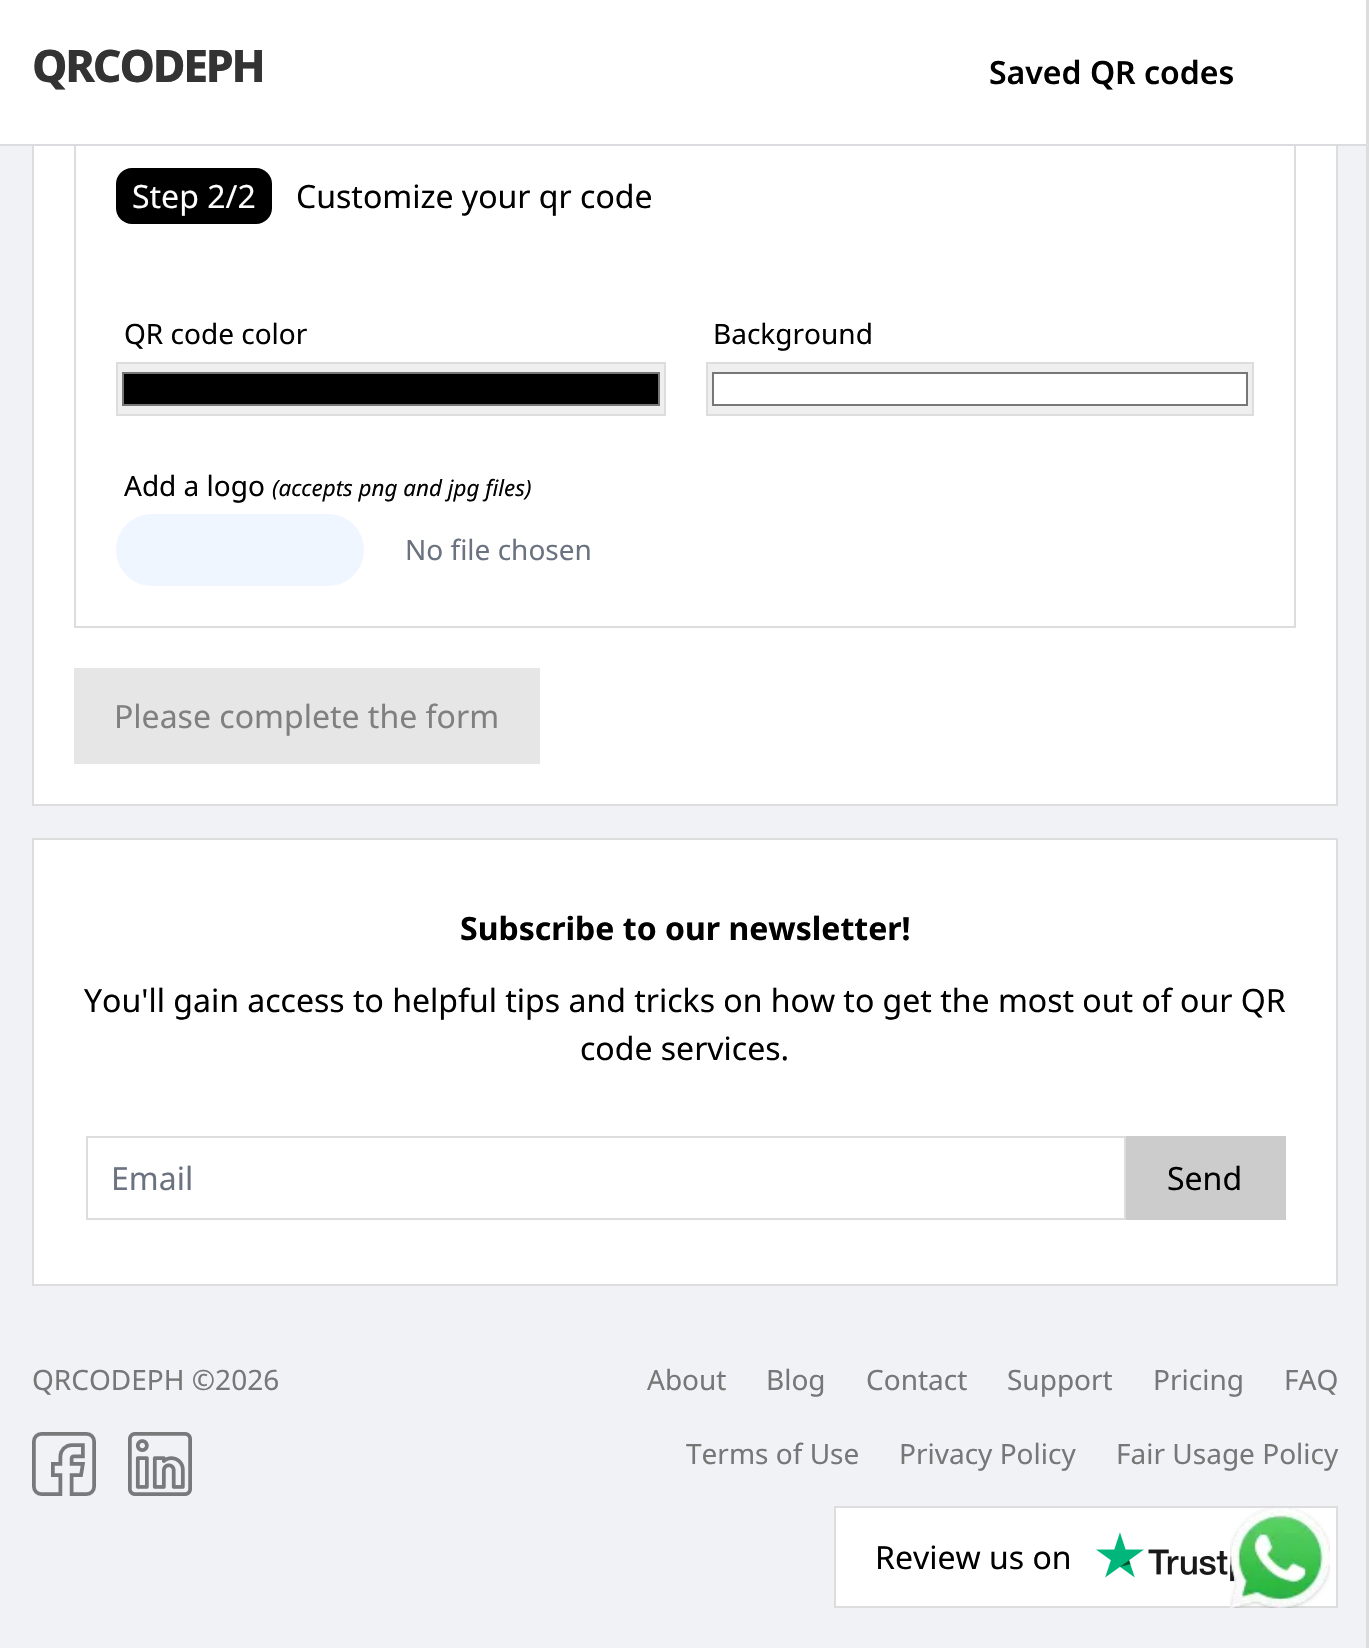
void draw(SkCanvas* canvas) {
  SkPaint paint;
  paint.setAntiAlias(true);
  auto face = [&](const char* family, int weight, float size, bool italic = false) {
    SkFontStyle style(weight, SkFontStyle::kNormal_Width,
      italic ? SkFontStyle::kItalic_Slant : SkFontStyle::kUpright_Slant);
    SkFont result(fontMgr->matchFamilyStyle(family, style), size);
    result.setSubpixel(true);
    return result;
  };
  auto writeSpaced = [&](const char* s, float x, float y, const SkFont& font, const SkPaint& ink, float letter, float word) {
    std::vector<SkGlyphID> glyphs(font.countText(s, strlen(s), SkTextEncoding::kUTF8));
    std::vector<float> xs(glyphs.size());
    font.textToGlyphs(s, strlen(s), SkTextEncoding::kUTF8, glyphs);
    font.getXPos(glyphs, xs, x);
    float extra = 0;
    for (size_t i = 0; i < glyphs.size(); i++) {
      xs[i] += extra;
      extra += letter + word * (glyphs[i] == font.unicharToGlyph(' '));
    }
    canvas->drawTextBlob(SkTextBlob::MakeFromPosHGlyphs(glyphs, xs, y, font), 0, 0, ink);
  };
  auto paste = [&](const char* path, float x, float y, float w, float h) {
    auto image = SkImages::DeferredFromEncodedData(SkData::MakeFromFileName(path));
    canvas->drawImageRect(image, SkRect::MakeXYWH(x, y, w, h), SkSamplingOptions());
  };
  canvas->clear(0xfff0f2f5);
  paint.setColor(0xffffffff);
  canvas->drawRect(SkRect::MakeXYWH(34, 146, 1302, 658), paint);
  paint.setStroke(true);
  paint.setStrokeWidth(2);
  paint.setColor(0xffdddddd);
  canvas->drawRect(SkRect::MakeXYWH(33, -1, 1304, 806), paint);
  canvas->drawRect(SkRect::MakeXYWH(75, 127, 1220, 500), paint);
  paint.setStroke(false);
  {
    const struct { float x, y, w, h; SkColor color; } items[] = {
      {0, 0, 1366, 144, 0xffffffff},
      {0, 144, 1369, 2, 0xffdadce0},
      {1366, 0, 3, 1648, 0xffdddddd},
    };
    for (auto [x, y, w, h, color] : items) {
      paint.setColor(color);
      canvas->drawRect(SkRect::MakeXYWH(x, y, w, h), paint);
    }
  }
  paint.setColor(0xff000000);
  canvas->drawRoundRect(SkRect::MakeXYWH(116, 168, 156, 56), 16, 16, paint);
  paint.setColor(0xffefefef);
  canvas->drawRect(SkRect::MakeXYWH(117, 363, 548, 52), paint);
  paint.setStroke(true);
  paint.setColor(0xffdddddd);
  canvas->drawRect(SkRect::MakeXYWH(117, 363, 548, 52), paint);
  paint.setStroke(false);
  paint.setColor(0xff000000);
  canvas->drawRect(SkRect::MakeXYWH(123, 373, 536, 32), paint);
  paint.setStroke(true);
  paint.setColor(0xff777777);
  canvas->drawRect(SkRect::MakeXYWH(123, 373, 536, 32), paint);
  paint.setStroke(false);
  paint.setColor(0xffefefef);
  canvas->drawRect(SkRect::MakeXYWH(707, 363, 546, 52), paint);
  paint.setStroke(true);
  paint.setColor(0xffdddddd);
  canvas->drawRect(SkRect::MakeXYWH(707, 363, 546, 52), paint);
  paint.setStroke(false);
  paint.setColor(0xffffffff);
  canvas->drawRect(SkRect::MakeXYWH(713, 373, 534, 32), paint);
  paint.setStroke(true);
  paint.setColor(0xff777777);
  canvas->drawRect(SkRect::MakeXYWH(713, 373, 534, 32), paint);
  paint.setStroke(false);
  paint.setColor(0xffeff6ff);
  canvas->drawRoundRect(SkRect::MakeXYWH(116, 514, 248, 72), 36, 36, paint);
  paint.setColor(0xffe6e6e6);
  canvas->drawRect(SkRect::MakeXYWH(74, 668, 466, 96), paint);
  paint.setColor(0xffffffff);
  canvas->drawRect(SkRect::MakeXYWH(33, 839, 1304, 446), paint);
  paint.setStroke(true);
  paint.setColor(0xffdddddd);
  canvas->drawRect(SkRect::MakeXYWH(33, 839, 1304, 446), paint);
  canvas->drawRect(SkRect::MakeXYWH(87, 1137, 1038, 82), paint);
  paint.setStroke(false);
  paint.setColor(0xffcccccc);
  canvas->drawRect(SkRect::MakeXYWH(1126, 1136, 160, 84), paint);
  paste("img/1.png", 32, 1432, 64, 64);
  paste("img/2.png", 128, 1432, 64, 64);
  paint.setColor(0xffffffff);
  canvas->drawRect(SkRect::MakeXYWH(835, 1507, 502, 100), paint);
  paint.setStroke(true);
  paint.setColor(0xffdddddd);
  canvas->drawRect(SkRect::MakeXYWH(835, 1507, 502, 100), paint);
  paste("img/3.png", 1096, 1532, 139, 50);
  paste("img/4.png", 1230, 1508, 100, 100);
  auto f0 = face("Noto Sans", 800, 44.75f);
  paint.setStroke(false);
  paint.setColor(0xff333333);
  writeSpaced("QRCODEPH", 32, 82, f0, paint, -2.25f, 0);
  auto f1 = face("Noto Sans", 600, 32);
  paint.setColor(0xff000000);
  canvas->drawString("Saved QR codes", 989, 84, f1, paint);
  auto f2 = face("Noto Sans", 400, 32);
  paint.setColor(0xffffffff);
  canvas->drawString("Step 2/2", 132, 208, f2, paint);
  paint.setColor(0xff000000);
  canvas->drawString("Customize your qr code", 296, 208, f2, paint);
  auto f3 = face("Noto Sans", 400, 28);
  {
    const struct { const char* s; float x, y; } items[] = {
      {"QR code color", 124, 344},
      {"Background", 713, 344},
      {"Add a logo", 124, 496},
    };
    for (auto [s, x, y] : items) {
      canvas->drawString(s, x, y, f3, paint);
    }
  }
  auto f4 = face("Noto Sans", 400, 22.4f, true);
  canvas->drawString("(accepts png and jpg files)", 272, 496, f4, paint);
  paint.setColor(0xff6b7280);
  canvas->drawString("No file chosen", 405, 560, f3, paint);
  paint.setColor(0xff808080);
  canvas->drawString("Please complete the form", 114, 728, f2, paint);
  auto f5 = face("Noto Sans", 700, 32);
  paint.setColor(0xff000000);
  canvas->drawString("Subscribe to our newsletter!", 460, 940, f5, paint);
  canvas->drawString("You'll gain access to helpful tips and tricks on how to get the most out of our QR", 84, 1012, f2, paint);
  canvas->drawString("code services.", 580, 1060, f2, paint);
  paint.setColor(0xff6b7280);
  canvas->drawString("Email", 111, 1190, f2, paint);
  paint.setColor(0xff000000);
  canvas->drawString("Send", 1167, 1190, f2, paint);
  paint.setColor(0xff777777);
  {
    const struct { const char* s; float x, y; } items[] = {
      {"QRCODEPH ©2026", 32, 1390},
      {"About", 647, 1390},
      {"Blog", 766, 1390},
      {"Contact", 866, 1390},
      {"Support", 1007, 1390},
      {"Pricing", 1153, 1390},
      {"FAQ", 1284, 1390},
      {"Terms of Use", 686, 1464},
      {"Privacy Policy", 899, 1464},
      {"Fair Usage Policy", 1116, 1464},
    };
    for (auto [s, x, y] : items) {
      canvas->drawString(s, x, y, f3, paint);
    }
  }
  paint.setColor(0xff000000);
  canvas->drawString("Review us on", 875, 1569, f2, paint);
}
